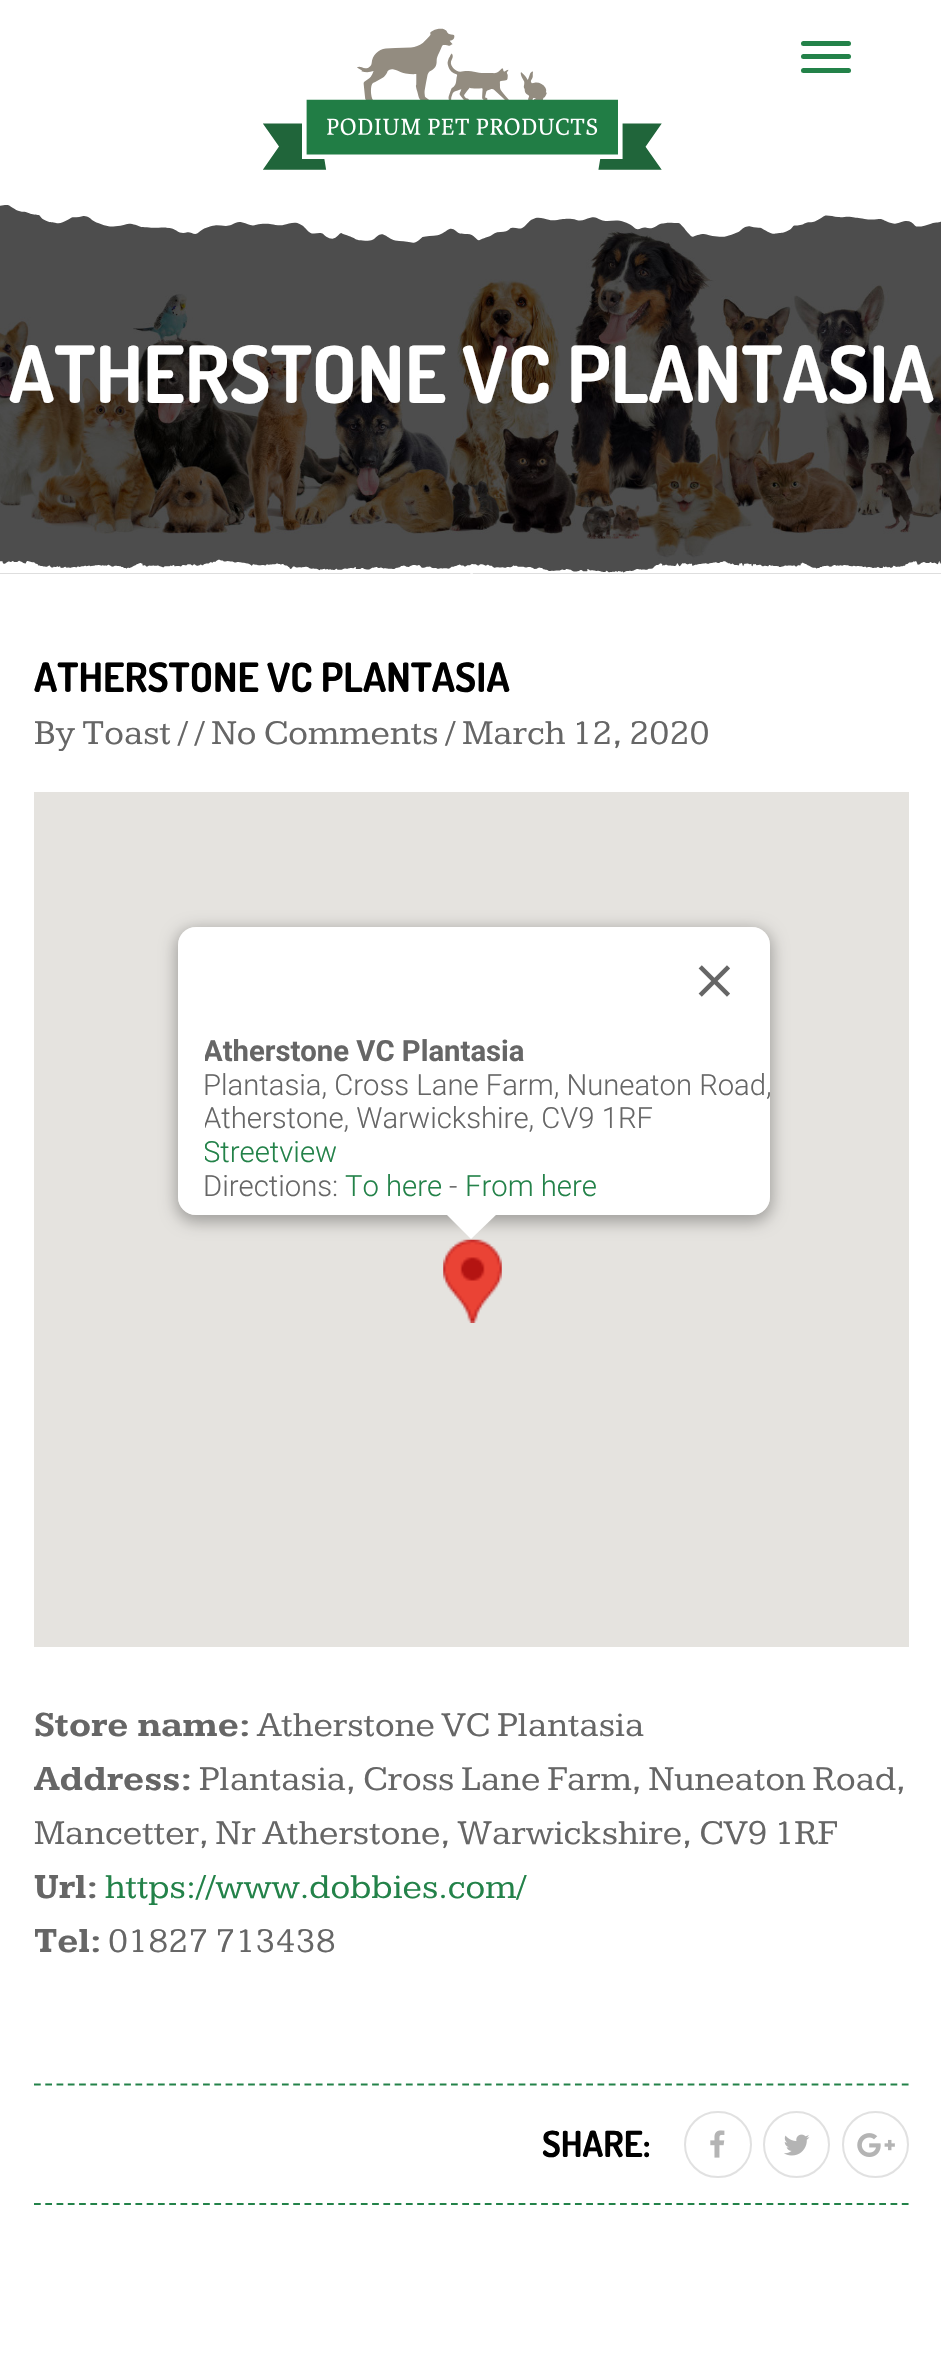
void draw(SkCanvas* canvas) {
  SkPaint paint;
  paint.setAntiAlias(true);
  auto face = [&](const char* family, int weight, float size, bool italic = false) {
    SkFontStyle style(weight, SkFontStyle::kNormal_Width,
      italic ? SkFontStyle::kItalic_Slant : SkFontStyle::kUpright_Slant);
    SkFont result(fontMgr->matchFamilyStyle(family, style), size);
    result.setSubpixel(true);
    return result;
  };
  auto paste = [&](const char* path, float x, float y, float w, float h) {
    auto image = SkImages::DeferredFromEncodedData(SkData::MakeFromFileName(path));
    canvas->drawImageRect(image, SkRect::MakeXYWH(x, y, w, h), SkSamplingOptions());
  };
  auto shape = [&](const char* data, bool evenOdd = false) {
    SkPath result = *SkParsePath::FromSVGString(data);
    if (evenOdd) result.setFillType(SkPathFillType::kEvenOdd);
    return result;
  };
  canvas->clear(0xffffffff);
  paste("img/1.png", 263, 28, 399, 142);
  paint.setColor(0xff238249);
  canvas->drawRoundRect(SkRect::MakeXYWH(801, 41, 50, 5), 2.5f, 2.5f, paint);
  canvas->drawRoundRect(SkRect::MakeXYWH(801, 54, 50, 5), 2.5f, 2.5f, paint);
  canvas->drawRoundRect(SkRect::MakeXYWH(801, 68, 50, 5), 2.5f, 2.5f, paint);
  paste("img/2.png", 0, 205, 941, 369);
  paste("img/3.png", 0, 182, 941, 61);
  paste("img/4.png", 0, 559, 941, 15);
  paint.setColor(0xffe5e3df);
  canvas->drawRect(SkRect::MakeXYWH(34, 792, 875, 855), paint);
  paste("img/6.png", 443, 1239, 59, 84);
  canvas->save();
  canvas->clipPath(shape("M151 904H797V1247H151ZM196 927H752C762 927 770 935 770 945V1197C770 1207 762 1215 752 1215H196C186 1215 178 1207 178 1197V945C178 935 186 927 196 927Z", true), true);
  paint.setColor(0x4d000000);
  paint.setMaskFilter(SkMaskFilter::MakeBlur(kNormal_SkBlurStyle, 8));
  canvas->drawRoundRect(SkRect::MakeXYWH(176, 929, 596, 293), 20, 20, paint);
  paint.setMaskFilter(nullptr);
  canvas->restore();
  paint.setColor(0xffffffff);
  canvas->drawRoundRect(SkRect::MakeXYWH(178, 927, 592, 288), 18, 18, paint);
  paste("img/5.png", 698, 965, 32, 32);
  canvas->drawPath(shape("M446 1213V1214L471 1239L498 1213Z"), paint);
  paint.setStroke(true);
  paint.setStrokeWidth(2.2f);
  paint.setColor(0xff238249);
  paint.setPathEffect(SkDashPathEffect::Make({{6.75f, 4.52f}}, 0));
  canvas->drawPath(shape("M34 2084.5H909"), paint);
  paint.setPathEffect(nullptr);
  paint.setPathEffect(SkDashPathEffect::Make({{6.75f, 4.52f}}, 0));
  canvas->drawPath(shape("M34 2204H909"), paint);
  paint.setPathEffect(nullptr);
  paint.setStrokeWidth(2);
  paint.setColor(0xffe1e1e1);
  canvas->drawRoundRect(SkRect::MakeXYWH(685, 2112, 66, 65), 32.5f, 32.5f, paint);
  paste("img/7.png", 710, 2130, 15, 28);
  canvas->drawCircle(796.5f, 2144.5f, 32.5f, paint);
  paste("img/8.png", 784, 2134, 26, 22);
  canvas->drawCircle(875.5f, 2144.5f, 32.5f, paint);
  paste("img/9.png", 857, 2133, 38, 24);
  auto f0 = face("Dosis", 700, 78.75f);
  paint.setStroke(false);
  paint.setColor(0xffffffff);
  canvas->drawString("ATHERSTONE VC PLANTASIA", 9, 403, f0, paint);
  auto f1 = face("Dosis", 700, 40.5f);
  paint.setColor(0xff000000);
  canvas->drawString("ATHERSTONE VC PLANTASIA", 34, 692, f1, paint);
  auto f2 = face("Kameron", 400, 36);
  paint.setColor(0xff666666);
  canvas->drawString("By Toast / / No Comments / March 12, 2020", 34, 744, f2, paint);
  canvas->save();
  canvas->clipRect(SkRect::MakeXYWH(205, 1035, 565, 180));
  auto f3 = face("Roboto", 700, 29.25f);
  canvas->drawString("Atherstone VC Plantasia", 203, 1061, f3, paint);
  canvas->restore();
  auto f4 = face("Roboto", 300, 29.25f);
  canvas->drawString("Plantasia, Cross Lane Farm, Nuneaton Road,", 203, 1095, f4, paint);
  canvas->save();
  canvas->clipRect(SkRect::MakeXYWH(205, 1035, 565, 180));
  canvas->drawString("Atherstone, Warwickshire, CV9 1RF", 203, 1128, f4, paint);
  paint.setColor(0xff238249);
  canvas->drawString("Streetview", 203, 1162, f4, paint);
  canvas->restore();
  paint.setColor(0xff666666);
  canvas->drawString("Directions:", 203, 1196, f4, paint);
  paint.setColor(0xff238249);
  canvas->drawString("To here", 345, 1196, f4, paint);
  paint.setColor(0xff666666);
  canvas->drawString("-", 449, 1196, f4, paint);
  paint.setColor(0xff238249);
  canvas->drawString("From here", 465, 1196, f4, paint);
  auto f5 = face("Kameron", 700, 36);
  paint.setColor(0xff666666);
  canvas->drawString("Store name:", 34, 1736, f5, paint);
  canvas->drawString("Atherstone VC Plantasia", 257, 1736, f2, paint);
  canvas->save();
  canvas->clipRect(SkRect::MakeXYWH(34, 792, 875, 1224));
  canvas->drawString("Address:", 34, 1790, f5, paint);
  canvas->restore();
  canvas->drawString("Plantasia, Cross Lane Farm, Nuneaton Road,", 199, 1790, f2, paint);
  canvas->drawString("Mancetter, Nr Atherstone, Warwickshire, CV9 1RF", 34, 1844, f2, paint);
  canvas->drawString("Url:", 34, 1898, f5, paint);
  paint.setColor(0xff238249);
  canvas->drawString("https://www.dobbies.com/", 105, 1898, f2, paint);
  paint.setColor(0xff666666);
  canvas->drawString("Tel:", 34, 1952, f5, paint);
  canvas->drawString("01827 713438", 108, 1952, f2, paint);
  auto f6 = face("Dosis", 700, 36);
  paint.setColor(0xff000000);
  canvas->drawString("SHARE:", 542, 2157, f6, paint);
}
